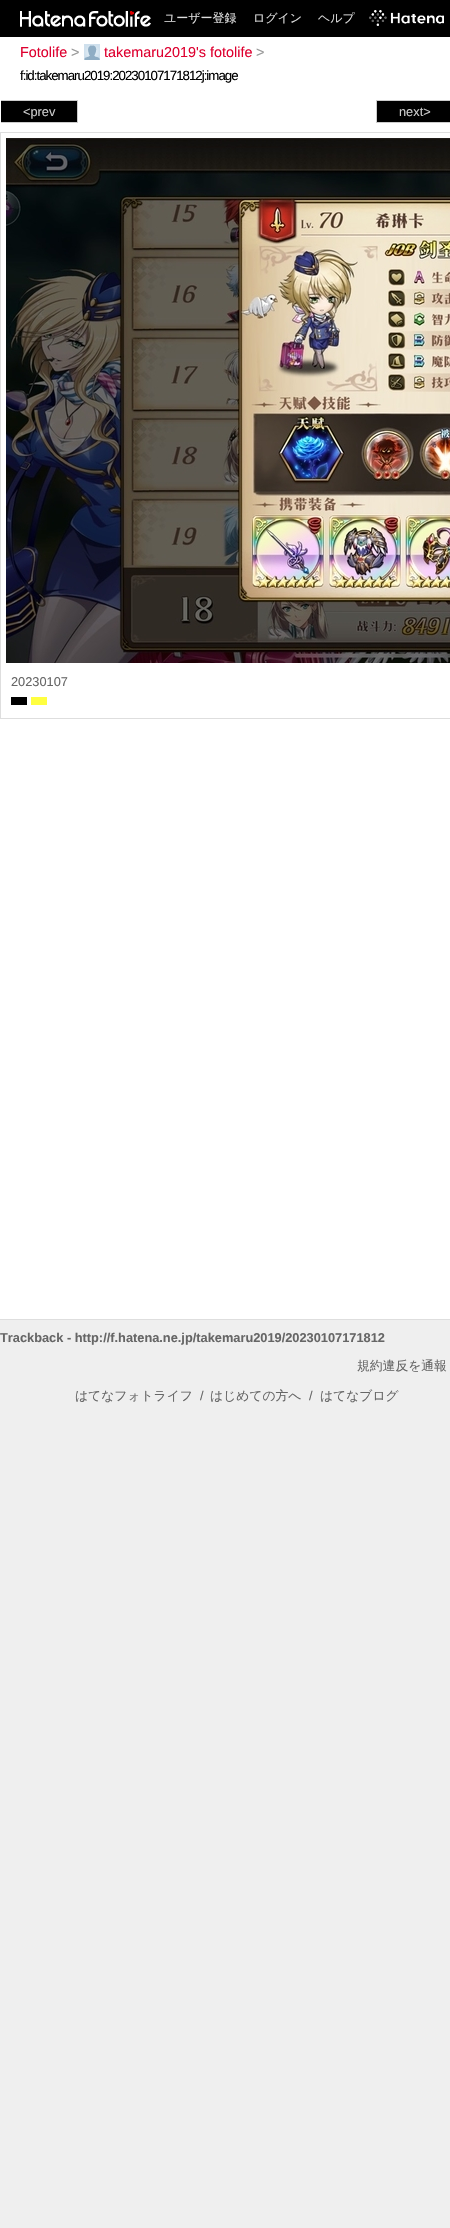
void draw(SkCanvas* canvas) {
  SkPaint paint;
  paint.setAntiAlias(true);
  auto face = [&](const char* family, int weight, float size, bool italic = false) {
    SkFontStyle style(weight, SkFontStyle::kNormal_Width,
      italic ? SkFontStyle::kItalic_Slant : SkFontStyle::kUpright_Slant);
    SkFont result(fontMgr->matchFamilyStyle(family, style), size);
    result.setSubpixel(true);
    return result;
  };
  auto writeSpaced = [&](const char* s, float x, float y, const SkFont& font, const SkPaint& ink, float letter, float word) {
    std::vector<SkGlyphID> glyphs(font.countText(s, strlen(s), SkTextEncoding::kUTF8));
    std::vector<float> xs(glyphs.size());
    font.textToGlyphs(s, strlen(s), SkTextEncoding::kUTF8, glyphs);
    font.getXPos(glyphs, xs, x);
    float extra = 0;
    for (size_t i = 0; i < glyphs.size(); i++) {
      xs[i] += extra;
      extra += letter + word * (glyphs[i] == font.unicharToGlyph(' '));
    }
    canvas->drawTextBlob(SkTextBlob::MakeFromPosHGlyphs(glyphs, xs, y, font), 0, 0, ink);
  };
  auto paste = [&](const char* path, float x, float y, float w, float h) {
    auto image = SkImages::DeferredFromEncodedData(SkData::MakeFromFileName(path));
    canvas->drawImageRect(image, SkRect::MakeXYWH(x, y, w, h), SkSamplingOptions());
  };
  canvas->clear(0xffefefef);
  paint.setColor(0xff000000);
  canvas->drawRect(SkRect::MakeXYWH(0, 0, 450, 37), paint);
  paste("img/1.png", 20, 11, 66, 16);
  paste("img/2.png", 89, 11, 62, 16);
  paste("img/3.png", 369, 10, 75, 16);
  paint.setColor(0xffffffff);
  canvas->drawRect(SkRect::MakeXYWH(0, 37, 450, 1282), paint);
  paste("img/4.png", 84, 44, 16, 16);
  {
    const struct { float x, y, w, h; SkColor color; } items[] = {
      {0, 1319, 450, 1, 0xffdedede},
      {1, 101, 76, 21, 0xff000000},
      {1, 100, 77, 1, 0xffcccccc},
      {77, 100, 1, 23, 0xffcccccc},
      {1, 122, 77, 1, 0xffcccccc},
      {377, 101, 73, 21, 0xff000000},
      {376, 100, 74, 1, 0xffcccccc},
      {376, 122, 74, 1, 0xffcccccc},
      {376, 100, 1, 23, 0xffcccccc},
    };
    for (auto [x, y, w, h, color] : items) {
      paint.setColor(color);
      canvas->drawRect(SkRect::MakeXYWH(x, y, w, h), paint);
    }
  }
  paint.setStroke(true);
  paint.setStrokeWidth(1);
  paint.setColor(0xffdedede);
  canvas->drawRect(SkRect::MakeXYWH(0.5f, 132.5f, 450, 586), paint);
  paste("img/5.png", 6, 138, 444, 525);
  paint.setStroke(false);
  paint.setColor(0xff000000);
  canvas->drawRect(SkRect::MakeXYWH(11, 697, 16, 8), paint);
  paint.setColor(0xffffff40);
  canvas->drawRect(SkRect::MakeXYWH(31, 697, 16, 8), paint);
  auto f0 = face("WenQuanYi Zen Hei", 500, 12);
  paint.setColor(0xffdddddd);
  {
    const struct { const char* s; float x, y; } items[] = {
      {"ユーザー登録", 164, 22},
      {"ログイン", 253, 22},
      {"ヘルプ", 318, 22},
    };
    for (auto [s, x, y] : items) {
      canvas->drawString(s, x, y, f0, paint);
    }
  }
  auto f1 = face("Liberation Sans", 400, 14.4f);
  paint.setColor(0xffde002f);
  canvas->drawString("Fotolife", 20, 57, f1, paint);
  paint.setColor(0xff999999);
  canvas->drawString(">", 71, 57, f1, paint);
  paint.setColor(0xffde002f);
  canvas->drawString("takemaru2019's fotolife", 104, 57, f1, paint);
  paint.setColor(0xff999999);
  canvas->drawString(">", 256, 57, f1, paint);
  auto f2 = face("Liberation Sans", 400, 13.3f);
  paint.setColor(0xff000000);
  writeSpaced("f:id:takemaru2019:20230107171812j:image", 20, 80, f2, paint, -1, 0);
  auto f3 = face("Liberation Sans", 400, 12.8f);
  paint.setColor(0xffcccccc);
  canvas->drawString("<prev", 23, 116, f3, paint);
  canvas->drawString("next>", 399, 116, f3, paint);
  paint.setColor(0xff666666);
  canvas->drawString("20230107", 11, 686, f3, paint);
  auto f4 = face("Liberation Sans", 700, 12.8f);
  canvas->drawString("Trackback - http://f.hatena.ne.jp/takemaru2019/20230107171812", 0, 1342, f4, paint);
  auto f5 = face("WenQuanYi Zen Hei", 500, 12.8f);
  canvas->drawString("規約違反を通報", 357, 1370, f5, paint);
  canvas->drawString("はてなフォトライフ", 75, 1400, f5, paint);
  canvas->drawString("/", 200, 1400, f3, paint);
  canvas->drawString("はじめての方へ", 210, 1400, f5, paint);
  canvas->drawString("/", 309, 1400, f3, paint);
  canvas->drawString("はてなブログ", 320, 1400, f5, paint);
}
